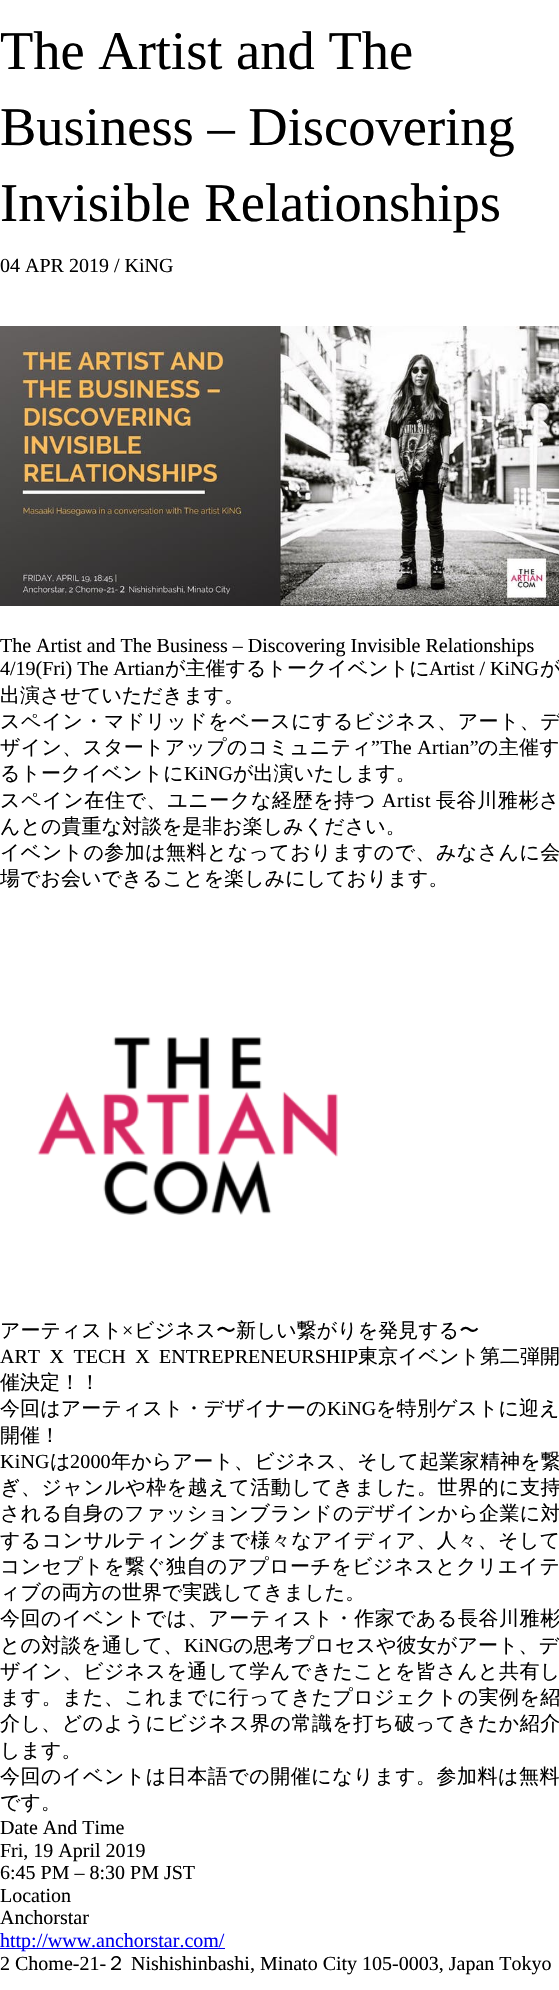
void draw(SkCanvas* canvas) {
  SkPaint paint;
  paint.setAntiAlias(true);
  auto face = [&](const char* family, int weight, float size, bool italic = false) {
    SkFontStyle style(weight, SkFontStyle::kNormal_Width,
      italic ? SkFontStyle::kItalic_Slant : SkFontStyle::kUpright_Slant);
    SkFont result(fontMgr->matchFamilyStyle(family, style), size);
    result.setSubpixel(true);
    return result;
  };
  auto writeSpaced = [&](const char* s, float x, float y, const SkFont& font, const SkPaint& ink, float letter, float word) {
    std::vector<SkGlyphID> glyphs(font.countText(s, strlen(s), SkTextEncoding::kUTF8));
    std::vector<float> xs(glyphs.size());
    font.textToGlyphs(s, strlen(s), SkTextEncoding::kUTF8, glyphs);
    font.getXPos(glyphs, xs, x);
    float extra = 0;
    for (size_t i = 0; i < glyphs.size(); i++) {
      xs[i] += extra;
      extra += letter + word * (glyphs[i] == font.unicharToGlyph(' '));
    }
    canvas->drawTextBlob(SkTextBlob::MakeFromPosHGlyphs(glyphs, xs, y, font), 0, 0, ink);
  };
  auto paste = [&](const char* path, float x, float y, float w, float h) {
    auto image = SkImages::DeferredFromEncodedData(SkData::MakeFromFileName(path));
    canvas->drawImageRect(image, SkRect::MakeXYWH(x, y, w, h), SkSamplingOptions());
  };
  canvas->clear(0xffffffff);
  paste("img/1.png", 0, 326, 559, 280);
  paste("img/2.png", 37, 1037, 301, 178);
  paint.setColor(0xff0000ee);
  canvas->drawRect(SkRect::MakeXYWH(0, 1948, 225, 1), paint);
  auto f0 = face("Liberation Serif", 400, 54.5f);
  paint.setColor(0xff000000);
  {
    const struct { const char* s; float x, y; } items[] = {
      {"The Artist and The", 0, 69},
      {"Business – Discovering", 0, 145},
      {"Invisible Relationships", 0, 221},
    };
    for (auto [s, x, y] : items) {
      canvas->drawString(s, x, y, f0, paint);
    }
  }
  auto f1 = face("Liberation Serif", 400, 20);
  {
    const struct { const char* s; float x, y; } items[] = {
      {"04 APR 2019 / KiNG", 0, 272},
      {"The Artist and The Business – Discovering Invisible Relationships", 0, 652},
      {"4/19(Fri) The Artian", 0, 675},
    };
    for (auto [s, x, y] : items) {
      canvas->drawString(s, x, y, f1, paint);
    }
  }
  auto f2 = face("WenQuanYi Zen Hei", 500, 20);
  canvas->drawString("が主催するトークイベントに", 165, 675, f2, paint);
  canvas->drawString("Artist / KiNG", 429, 675, f1, paint);
  canvas->drawString("が", 540, 675, f2, paint);
  canvas->drawString("出演させていただきます。", 0, 702, f2, paint);
  writeSpaced("スペイン・マドリッドをベースにするビジネス、アート、デ", 0, 728, f2, paint, 0.4f, 0);
  writeSpaced("ザイン、スタートアップのコミュニティ", 0, 754, f2, paint, 0.25f, 0);
  writeSpaced("”The Artian”", 371, 754, f1, paint, 0.25f, 0);
  writeSpaced("の主催す", 478, 754, f2, paint, 0.25f, 0);
  canvas->drawString("るトークイベントに", 0, 780, f2, paint);
  canvas->drawString("KiNG", 184, 780, f1, paint);
  canvas->drawString("が出演いたします。", 233, 780, f2, paint);
  writeSpaced("スペイン在住で、ユニークな経歴を持つ", 0, 807, f2, paint, 0.6f, 0);
  writeSpaced("Artist", 382, 807, f1, paint, 0.6f, 0);
  writeSpaced("長谷川雅彬さ", 436, 807, f2, paint, 0.6f, 0);
  canvas->drawString("んとの貴重な対談を是非お楽しみください。", 0, 833, f2, paint);
  writeSpaced("イベントの参加は無料となっておりますので、みなさんに会", 0, 859, f2, paint, 0.4f, 0);
  canvas->drawString("場でお会いできることを楽しみにしております。", 0, 885, f2, paint);
  canvas->drawString("アーティスト", 0, 1337, f2, paint);
  canvas->drawString("×", 122, 1337, f1, paint);
  canvas->drawString("ビジネス〜新しい繋がりを発見する〜", 134, 1337, f2, paint);
  writeSpaced("ART X TECH X ENTREPRENEURSHIP", 0, 1363, f1, paint, 0, 4.5f);
  canvas->drawString("東京イベント第二弾開", 358, 1363, f2, paint);
  canvas->drawString("催決定！！", 0, 1389, f2, paint);
  writeSpaced("今回はアーティスト・デザイナーの", 0, 1415, f2, paint, 0.1f, 0);
  writeSpaced("KiNG", 327, 1415, f1, paint, 0.1f, 0);
  writeSpaced("を特別ゲストに迎え", 376, 1415, f2, paint, 0.1f, 0);
  canvas->drawString("開催！", 0, 1442, f2, paint);
  writeSpaced("KiNG", 0, 1468, f1, paint, 0.2f, 0);
  writeSpaced("は", 50, 1468, f2, paint, 0.2f, 0);
  writeSpaced("2000", 70, 1468, f1, paint, 0.2f, 0);
  writeSpaced("年からアート、ビジネス、そして起業家精神を繋", 111, 1468, f2, paint, 0.2f, 0);
  writeSpaced("ぎ、ジャンルや枠を越えて活動してきました。世界的に支持", 0, 1494, f2, paint, 0.5f, 0);
  writeSpaced("される自身のファッションブランドのデザインから企業に対", 0, 1520, f2, paint, 0.4f, 0);
  writeSpaced("するコンサルティングまで様々なアイディア、人々、そして", 0, 1547, f2, paint, 0.4f, 0);
  writeSpaced("コンセプトを繋ぐ独自のアプローチをビジネスとクリエイテ", 0, 1573, f2, paint, 0.35f, 0);
  canvas->drawString("ィブの両方の世界で実践してきました。", 0, 1599, f2, paint);
  writeSpaced("今回のイベントでは、アーティスト・作家である長谷川雅彬", 0, 1625, f2, paint, 0.5f, 0);
  writeSpaced("との対談を通して、", 0, 1652, f2, paint, 0.1f, 0);
  writeSpaced("KiNG", 184, 1652, f1, paint, 0.1f, 0);
  writeSpaced("の思考プロセスや彼女がアート、デ", 233, 1652, f2, paint, 0.1f, 0);
  writeSpaced("ザイン、ビジネスを通して学んできたことを皆さんと共有し", 0, 1678, f2, paint, 0.4f, 0);
  writeSpaced("ます。また、これまでに行ってきたプロジェクトの実例を紹", 0, 1704, f2, paint, 0.4f, 0);
  writeSpaced("介し、どのようにビジネス界の常識を打ち破ってきたか紹介", 0, 1730, f2, paint, 0.45f, 0);
  canvas->drawString("します。", 0, 1757, f2, paint);
  writeSpaced("今回のイベントは日本語での開催になります。参加料は無料", 0, 1783, f2, paint, 0.5f, 0);
  canvas->drawString("です。", 0, 1809, f2, paint);
  {
    const struct { const char* s; float x, y; } items[] = {
      {"Date And Time", 0, 1834},
      {"Fri, 19 April 2019", 0, 1857},
      {"6:45 PM – 8:30 PM JST", 0, 1879},
      {"Location", 0, 1902},
      {"Anchorstar", 0, 1924},
    };
    for (auto [s, x, y] : items) {
      canvas->drawString(s, x, y, f1, paint);
    }
  }
  paint.setColor(0xff0000ee);
  canvas->drawString("http://www.anchorstar.com/", 0, 1947, f1, paint);
  paint.setColor(0xff000000);
  canvas->drawString("2 Chome-21-", 0, 1970, f1, paint);
  canvas->drawString("２", 106, 1970, f2, paint);
  canvas->drawString("Nishishinbashi, Minato City 105-0003, Japan Tokyo", 131, 1970, f1, paint);
}
